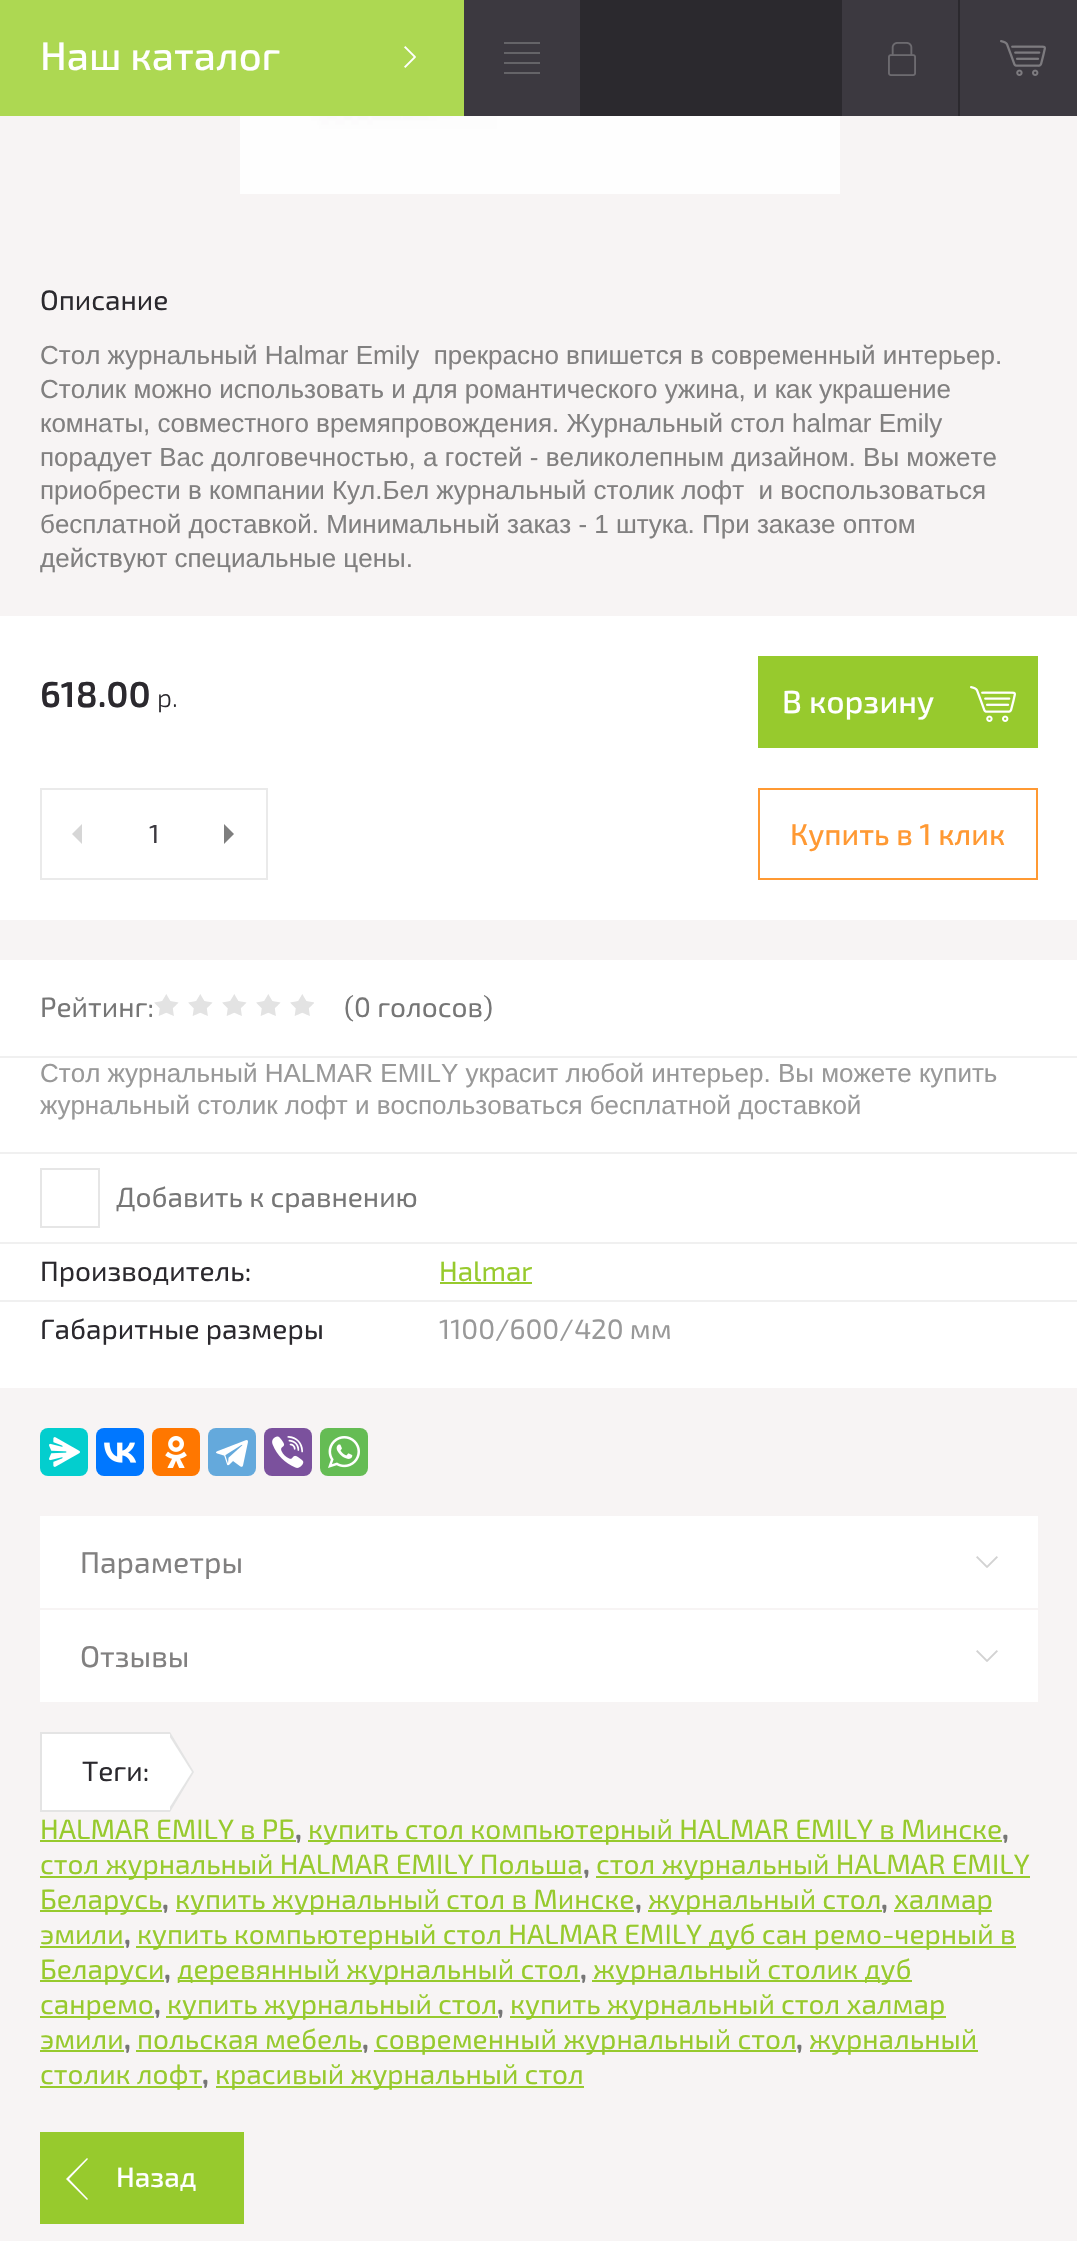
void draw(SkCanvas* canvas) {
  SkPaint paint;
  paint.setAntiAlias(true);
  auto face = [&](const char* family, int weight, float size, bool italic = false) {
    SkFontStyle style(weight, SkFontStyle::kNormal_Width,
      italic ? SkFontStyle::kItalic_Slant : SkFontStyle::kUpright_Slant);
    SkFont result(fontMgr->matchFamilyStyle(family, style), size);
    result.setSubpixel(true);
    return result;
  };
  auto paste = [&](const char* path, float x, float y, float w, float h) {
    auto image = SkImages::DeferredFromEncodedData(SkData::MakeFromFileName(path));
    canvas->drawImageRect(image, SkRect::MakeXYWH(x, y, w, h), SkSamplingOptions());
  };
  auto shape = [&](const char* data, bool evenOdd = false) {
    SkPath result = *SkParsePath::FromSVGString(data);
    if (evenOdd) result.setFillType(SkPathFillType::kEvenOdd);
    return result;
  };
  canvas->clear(0xfff7f4f4);
  paint.setColor(0xff2b292e);
  canvas->drawRect(SkRect::MakeXYWH(580, 0, 380, 116), paint);
  paint.setColor(0xffadd852);
  canvas->drawRect(SkRect::MakeXYWH(0, 0, 464, 116), paint);
  paste("img/1.png", 404, 46, 12, 22);
  {
    const struct { float x, y, w, h; SkColor color; } items[] = {
      {464, 0, 116, 116, 0xff3c3940},
      {504, 42, 36, 2, 0xff656468},
      {504, 52, 36, 2, 0xff656468},
      {504, 62, 36, 2, 0xff656468},
      {504, 72, 36, 2, 0xff656468},
      {842, 0, 116, 116, 0xff3c3940},
    };
    for (auto [x, y, w, h, color] : items) {
      paint.setColor(color);
      canvas->drawRect(SkRect::MakeXYWH(x, y, w, h), paint);
    }
  }
  paste("img/2.png", 888, 42, 28, 34);
  canvas->drawRect(SkRect::MakeXYWH(960, 0, 117, 116), paint);
  paste("img/3.png", 1000, 40, 46, 36);
  paste("img/4.png", 240, 116, 600, 78);
  paint.setColor(0xffffffff);
  canvas->drawRect(SkRect::MakeXYWH(0, 616, 1077, 304), paint);
  paint.setStroke(true);
  paint.setStrokeWidth(2);
  paint.setColor(0xffeaeaea);
  canvas->drawRect(SkRect::MakeXYWH(41, 789, 226, 90), paint);
  paint.setStroke(false);
  paint.setColor(0xffd6d6d6);
  canvas->drawPath(shape("M82 824V844L72 834Z"), paint);
  paint.setColor(0xff7e7e7e);
  canvas->drawPath(shape("M224 844V824L234 834Z"), paint);
  paint.setColor(0xff97ca2d);
  canvas->drawRect(SkRect::MakeXYWH(758, 656, 280, 92), paint);
  paste("img/5.png", 970, 686, 46, 36);
  paint.setStroke(true);
  paint.setColor(0xffff9933);
  canvas->drawRect(SkRect::MakeXYWH(759, 789, 278, 90), paint);
  paint.setStroke(false);
  paint.setColor(0xffffffff);
  canvas->drawRect(SkRect::MakeXYWH(0, 960, 1077, 428), paint);
  paint.setColor(0xfff0f0f0);
  canvas->drawRect(SkRect::MakeXYWH(0, 1056, 1077, 2), paint);
  paste("img/6.png", 154, 994, 160, 22);
  canvas->drawRect(SkRect::MakeXYWH(0, 1152, 1077, 2), paint);
  canvas->drawRect(SkRect::MakeXYWH(0, 1242, 1077, 2), paint);
  paint.setStroke(true);
  paint.setColor(0xffe6e6e6);
  canvas->drawRect(SkRect::MakeXYWH(41, 1169, 58, 58), paint);
  paint.setStroke(false);
  paint.setColor(0xfff0f0f0);
  canvas->drawRect(SkRect::MakeXYWH(0, 1300, 1077, 2), paint);
  paint.setColor(0xff97ca2d);
  canvas->drawRect(SkRect::MakeXYWH(440, 1282, 92, 2), paint);
  paint.setColor(0xff03cece);
  canvas->drawRoundRect(SkRect::MakeXYWH(40, 1428, 48, 48), 8, 8, paint);
  paste("img/7.png", 49, 1437, 31, 30);
  paint.setColor(0xff0077ff);
  canvas->drawRoundRect(SkRect::MakeXYWH(96, 1428, 48, 48), 8, 8, paint);
  paste("img/8.png", 104, 1442, 33, 21);
  paint.setColor(0xffff7700);
  canvas->drawRoundRect(SkRect::MakeXYWH(152, 1428, 48, 48), 8, 8, paint);
  paste("img/9.png", 165, 1436, 22, 32);
  paint.setColor(0xff64a9dc);
  canvas->drawRoundRect(SkRect::MakeXYWH(208, 1428, 48, 48), 8, 8, paint);
  paste("img/10.png", 216, 1440, 32, 27);
  paint.setColor(0xff7b519d);
  canvas->drawRoundRect(SkRect::MakeXYWH(264, 1428, 48, 48), 8, 8, paint);
  paste("img/11.png", 272, 1436, 32, 32);
  paint.setColor(0xff65bc54);
  canvas->drawRoundRect(SkRect::MakeXYWH(320, 1428, 48, 48), 8, 8, paint);
  paste("img/12.png", 328, 1436, 32, 32);
  paint.setColor(0xffffffff);
  canvas->drawRect(SkRect::MakeXYWH(40, 1516, 998, 92), paint);
  paste("img/13.png", 976, 1556, 22, 12);
  canvas->drawRect(SkRect::MakeXYWH(40, 1610, 998, 92), paint);
  paste("img/13.png", 976, 1650, 22, 12);
  {
    const struct { float x, y, w, h; SkColor color; } items[] = {
      {42, 1734, 128, 76, 0xffffffff},
      {40, 1732, 130, 2, 0xffe4e4e4},
      {40, 1810, 130, 2, 0xffe4e4e4},
      {40, 1732, 2, 80, 0xffe4e4e4},
    };
    for (auto [x, y, w, h, color] : items) {
      paint.setColor(color);
      canvas->drawRect(SkRect::MakeXYWH(x, y, w, h), paint);
    }
  }
  canvas->drawPath(shape("M170 1812V1732L194 1772Z"), paint);
  paint.setColor(0xffffffff);
  canvas->drawPath(shape("M168 1810V1734L192 1772Z"), paint);
  {
    const struct { float x, y, w, h; SkColor color; } items[] = {
      {40, 1840, 256, 2, 0xff97ca2d},
      {308, 1840, 694, 2, 0xff97ca2d},
      {40, 1876, 542, 2, 0xff97ca2d},
      {596, 1876, 434, 2, 0xff97ca2d},
      {40, 1910, 122, 2, 0xff97ca2d},
      {176, 1910, 458, 2, 0xff97ca2d},
      {648, 1910, 234, 2, 0xff97ca2d},
      {894, 1910, 98, 2, 0xff97ca2d},
      {40, 1946, 84, 2, 0xff97ca2d},
      {136, 1946, 880, 2, 0xff97ca2d},
      {40, 1980, 124, 2, 0xff97ca2d},
      {178, 1980, 402, 2, 0xff97ca2d},
      {592, 1980, 320, 2, 0xff97ca2d},
      {40, 2016, 114, 2, 0xff97ca2d},
      {166, 2016, 332, 2, 0xff97ca2d},
      {510, 2016, 436, 2, 0xff97ca2d},
      {40, 2050, 84, 2, 0xff97ca2d},
      {136, 2050, 226, 2, 0xff97ca2d},
      {374, 2050, 422, 2, 0xff97ca2d},
      {810, 2050, 168, 2, 0xff97ca2d},
      {40, 2086, 162, 2, 0xff97ca2d},
      {216, 2086, 368, 2, 0xff97ca2d},
      {40, 2132, 204, 92, 0xff97ca2d},
    };
    for (auto [x, y, w, h, color] : items) {
      paint.setColor(color);
      canvas->drawRect(SkRect::MakeXYWH(x, y, w, h), paint);
    }
  }
  paint.setColor(0xffffffff);
  canvas->drawPath(shape("M88 2199L87 2200L66 2179L87 2158L88 2159L69 2179Z", true), paint);
  auto f0 = face("Exo 2", 500, 40);
  canvas->drawString("Наш каталог", 40, 70, f0, paint);
  auto f1 = face("Exo 2", 400, 28);
  paint.setColor(0xff2b292e);
  canvas->drawString("Описание", 40, 310, f1, paint);
  auto f2 = face("Liberation Sans", 400, 26);
  paint.setColor(0xff818080);
  {
    const struct { const char* s; float x, y; } items[] = {
      {"Стол журнальный Halmar Emily  прекрасно впишется в современный интерьер.", 40, 364},
      {"Столик можно использовать и для романтического ужина, и как украшение", 40, 398},
      {"комнаты, совместного времяпровождения. Журнальный стол halmar Emily", 40, 432},
      {"порадует Вас долговечностью, а гостей - великолепным дизайном. Вы можете", 40, 466},
      {"приобрести в компании Кул.Бел журнальный столик лофт  и воспользоваться", 40, 499},
      {"бесплатной доставкой. Минимальный заказ - 1 штука. При заказе оптом", 40, 533},
      {"действуют специальные цены.", 40, 567},
    };
    for (auto [s, x, y] : items) {
      canvas->drawString(s, x, y, f2, paint);
    }
  }
  auto f3 = face("Exo 2", 600, 36);
  paint.setColor(0xff2b292e);
  canvas->drawString("618.00", 40, 707, f3, paint);
  auto f4 = face("Exo 2", 300, 26);
  canvas->drawString("р.", 157, 707, f4, paint);
  auto f5 = face("Exo 2", 400, 26);
  paint.setColor(0xff3c3940);
  canvas->drawString("1", 149, 843, f5, paint);
  auto f6 = face("Exo 2", 500, 32);
  paint.setColor(0xffffffff);
  canvas->drawString("В корзину", 782, 713, f6, paint);
  auto f7 = face("Exo 2", 500, 30);
  paint.setColor(0xffff9933);
  canvas->drawString("Купить в 1 клик", 790, 845, f7, paint);
  paint.setColor(0xff767676);
  canvas->drawString("Рейтинг:", 40, 1017, f1, paint);
  canvas->drawString("(0 голосов)", 344, 1017, f1, paint);
  paint.setColor(0xff999999);
  canvas->drawString("Стол журнальный HALMAR EMILY украсит любой интерьер. Вы можете купить", 40, 1082, f2, paint);
  canvas->drawString("журнальный столик лофт и воспользоваться бесплатной доставкой", 40, 1114, f2, paint);
  paint.setColor(0xff767676);
  canvas->drawString("Добавить к сравнению", 116, 1207, f1, paint);
  paint.setColor(0xff2b292e);
  canvas->drawString("Производитель:", 40, 1281, f1, paint);
  paint.setColor(0xff97ca2d);
  canvas->drawString("Halmar", 439, 1281, f1, paint);
  paint.setColor(0xff2b292e);
  canvas->drawString("Габаритные размеры", 40, 1339, f1, paint);
  paint.setColor(0xff999999);
  canvas->drawString("1100/600/420 мм", 439, 1339, f1, paint);
  auto f8 = face("Exo 2", 400, 30);
  paint.setColor(0xff818080);
  canvas->drawString("Параметры", 80, 1573, f8, paint);
  canvas->drawString("Отзывы", 80, 1667, f8, paint);
  paint.setColor(0xff2b292e);
  canvas->drawString("Теги:", 82, 1781, f1, paint);
  paint.setColor(0xff97ca2d);
  canvas->drawString("HALMAR EMILY в РБ", 40, 1839, f1, paint);
  auto f9 = face("Exo 2", 700, 28);
  paint.setColor(0xff767676);
  canvas->drawString(",", 295, 1839, f9, paint);
  paint.setColor(0xff97ca2d);
  canvas->drawString("купить стол компьютерный HALMAR EMILY в Минске", 308, 1839, f1, paint);
  paint.setColor(0xff767676);
  canvas->drawString(",", 1002, 1839, f9, paint);
  paint.setColor(0xff97ca2d);
  canvas->drawString("стол журнальный HALMAR EMILY Польша", 40, 1874, f1, paint);
  paint.setColor(0xff767676);
  canvas->drawString(",", 583, 1874, f9, paint);
  paint.setColor(0xff97ca2d);
  canvas->drawString("стол журнальный HALMAR EMILY", 596, 1874, f1, paint);
  canvas->drawString("Беларусь", 40, 1909, f1, paint);
  paint.setColor(0xff767676);
  canvas->drawString(",", 162, 1909, f9, paint);
  paint.setColor(0xff97ca2d);
  canvas->drawString("купить журнальный стол в Минске", 175, 1909, f1, paint);
  paint.setColor(0xff767676);
  canvas->drawString(",", 635, 1909, f9, paint);
  paint.setColor(0xff97ca2d);
  canvas->drawString("журнальный стол", 648, 1909, f1, paint);
  paint.setColor(0xff767676);
  canvas->drawString(",", 881, 1909, f9, paint);
  paint.setColor(0xff97ca2d);
  canvas->drawString("халмар", 894, 1909, f1, paint);
  canvas->drawString("эмили", 40, 1944, f1, paint);
  paint.setColor(0xff767676);
  canvas->drawString(",", 124, 1944, f9, paint);
  paint.setColor(0xff97ca2d);
  canvas->drawString("купить компьютерный стол HALMAR EMILY дуб сан ремо-черный в", 137, 1944, f1, paint);
  canvas->drawString("Беларуси", 40, 1979, f1, paint);
  paint.setColor(0xff767676);
  canvas->drawString(",", 164, 1979, f9, paint);
  paint.setColor(0xff97ca2d);
  canvas->drawString("деревянный журнальный стол", 177, 1979, f1, paint);
  paint.setColor(0xff767676);
  canvas->drawString(",", 580, 1979, f9, paint);
  paint.setColor(0xff97ca2d);
  canvas->drawString("журнальный столик дуб", 593, 1979, f1, paint);
  canvas->drawString("санремо", 40, 2014, f1, paint);
  paint.setColor(0xff767676);
  canvas->drawString(",", 154, 2014, f9, paint);
  paint.setColor(0xff97ca2d);
  canvas->drawString("купить журнальный стол", 167, 2014, f1, paint);
  paint.setColor(0xff767676);
  canvas->drawString(",", 497, 2014, f9, paint);
  paint.setColor(0xff97ca2d);
  canvas->drawString("купить журнальный стол халмар", 510, 2014, f1, paint);
  canvas->drawString("эмили", 40, 2049, f1, paint);
  paint.setColor(0xff767676);
  canvas->drawString(",", 124, 2049, f9, paint);
  paint.setColor(0xff97ca2d);
  canvas->drawString("польская мебель", 137, 2049, f1, paint);
  paint.setColor(0xff767676);
  canvas->drawString(",", 362, 2049, f9, paint);
  paint.setColor(0xff97ca2d);
  canvas->drawString("современный журнальный стол", 375, 2049, f1, paint);
  paint.setColor(0xff767676);
  canvas->drawString(",", 796, 2049, f9, paint);
  paint.setColor(0xff97ca2d);
  canvas->drawString("журнальный", 809, 2049, f1, paint);
  canvas->drawString("столик лофт", 40, 2084, f1, paint);
  paint.setColor(0xff767676);
  canvas->drawString(",", 202, 2084, f9, paint);
  paint.setColor(0xff97ca2d);
  canvas->drawString("красивый журнальный стол", 215, 2084, f1, paint);
  auto f10 = face("Exo 2", 500, 28);
  paint.setColor(0xffffffff);
  canvas->drawString("Назад", 116, 2187, f10, paint);
}
